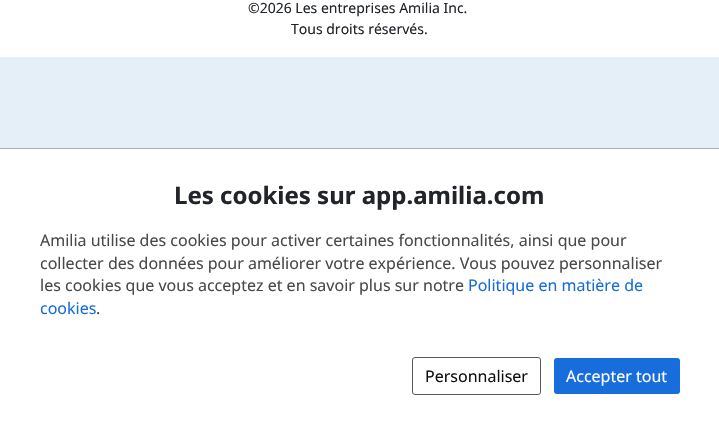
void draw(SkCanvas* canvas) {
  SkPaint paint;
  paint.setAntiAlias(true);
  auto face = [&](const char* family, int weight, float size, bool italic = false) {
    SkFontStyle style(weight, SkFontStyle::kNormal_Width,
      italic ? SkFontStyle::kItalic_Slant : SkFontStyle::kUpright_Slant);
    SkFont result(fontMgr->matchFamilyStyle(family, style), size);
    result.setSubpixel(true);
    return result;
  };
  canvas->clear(0xffe4eff7);
  {
    const struct { float x, y, w, h; SkColor color; } items[] = {
      {0, 0, 719, 57, 0xffffffff},
      {0, 149, 719, 278, 0xffffffff},
      {0, 148, 719, 1, 0xffaeaeae},
    };
    for (auto [x, y, w, h, color] : items) {
      paint.setColor(color);
      canvas->drawRect(SkRect::MakeXYWH(x, y, w, h), paint);
    }
  }
  paint.setStroke(true);
  paint.setStrokeWidth(1);
  paint.setColor(0xff595959);
  canvas->drawRoundRect(SkRect::MakeXYWH(412.5f, 357.5f, 128, 37), 2.5f, 2.5f, paint);
  paint.setStroke(false);
  paint.setColor(0xff186ddc);
  canvas->drawRoundRect(SkRect::MakeXYWH(554, 358, 126, 36), 3, 3, paint);
  auto f0 = face("Noto Sans", 400, 14);
  paint.setColor(0xff212529);
  canvas->drawString("©2026 Les entreprises Amilia Inc.", 248, 13, f0, paint);
  canvas->drawString("Tous droits réservés.", 291, 34, f0, paint);
  auto f1 = face("Noto Sans", 700, 24);
  canvas->drawString("Les cookies sur app.amilia.com", 174, 204, f1, paint);
  auto f2 = face("Noto Sans", 400, 16);
  paint.setColor(0xff494949);
  {
    const struct { const char* s; float x, y; } items[] = {
      {"Amilia utilise des cookies pour activer certaines fonctionnalités, ainsi que pour", 40, 246},
      {"collecter des données pour améliorer votre expérience. Vous pouvez personnaliser", 40, 269},
      {"les cookies que vous acceptez et en savoir plus sur notre", 40, 291},
    };
    for (auto [s, x, y] : items) {
      canvas->drawString(s, x, y, f2, paint);
    }
  }
  paint.setColor(0xff186ddc);
  canvas->drawString("Politique en matière de", 468, 291, f2, paint);
  canvas->drawString("cookies", 40, 314, f2, paint);
  paint.setColor(0xff494949);
  canvas->drawString(".", 96, 314, f2, paint);
  paint.setColor(0xff0f1111);
  canvas->drawString("Personnaliser", 425, 382, f2, paint);
  paint.setColor(0xffffffff);
  canvas->drawString("Accepter tout", 566, 382, f2, paint);
}
